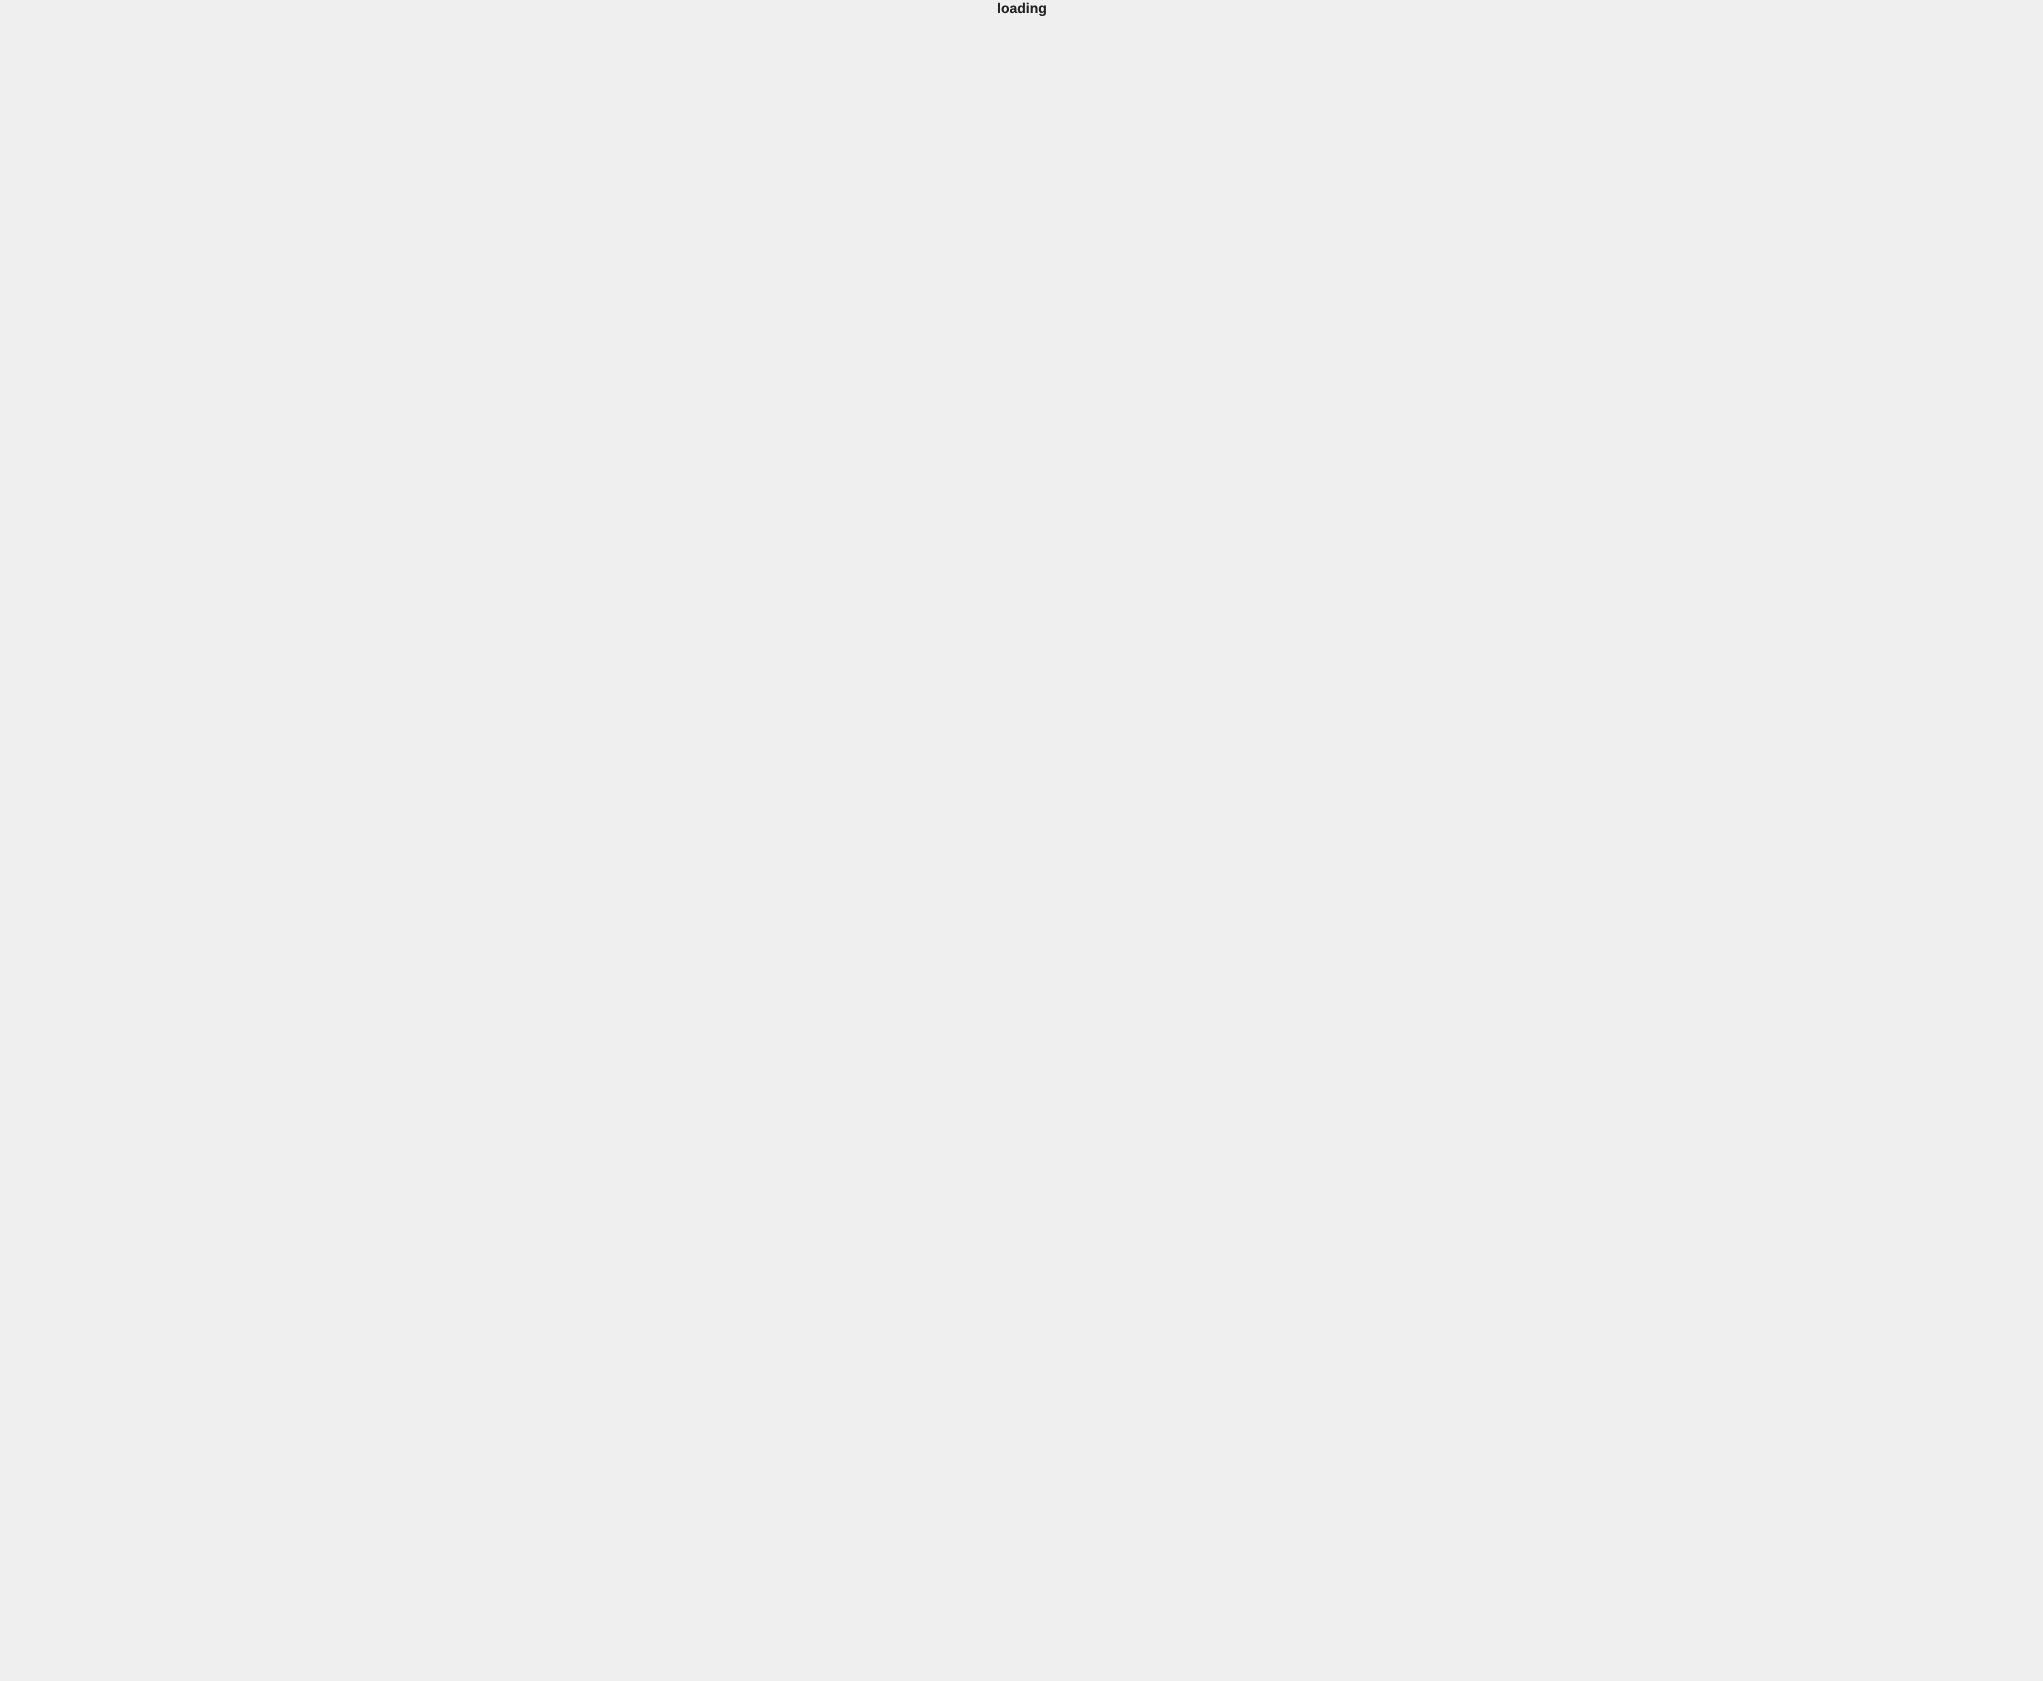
void draw(SkCanvas* canvas) {
  SkPaint paint;
  paint.setAntiAlias(true);
  auto face = [&](const char* family, int weight, float size, bool italic = false) {
    SkFontStyle style(weight, SkFontStyle::kNormal_Width,
      italic ? SkFontStyle::kItalic_Slant : SkFontStyle::kUpright_Slant);
    SkFont result(fontMgr->matchFamilyStyle(family, style), size);
    result.setSubpixel(true);
    return result;
  };
  canvas->clear(0xffefefef);
  auto f0 = face("Liberation Sans", 700, 14);
  paint.setColor(0xff222222);
  canvas->drawString("loading", 997, 13, f0, paint);
}
